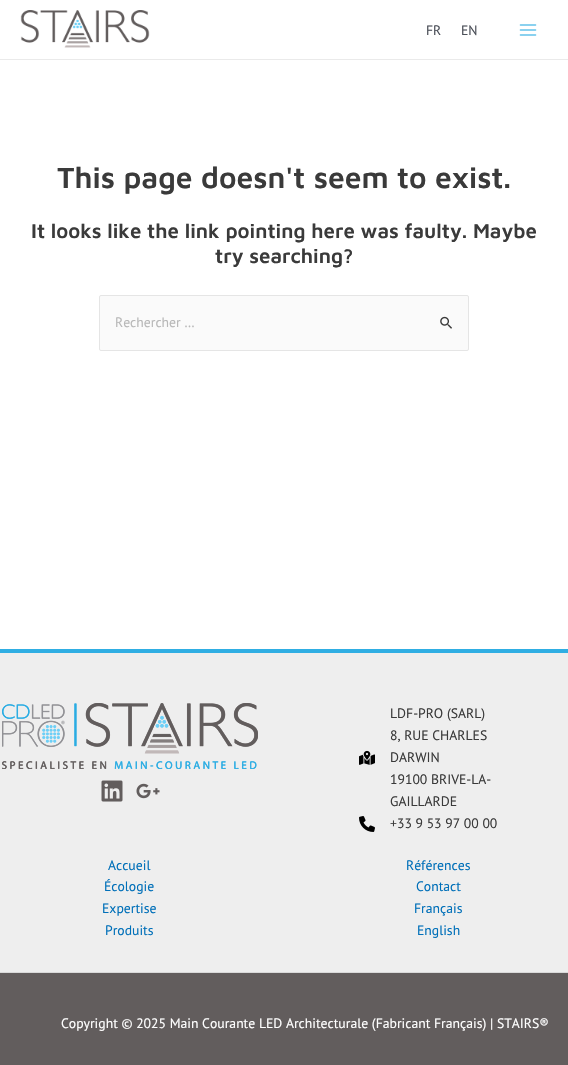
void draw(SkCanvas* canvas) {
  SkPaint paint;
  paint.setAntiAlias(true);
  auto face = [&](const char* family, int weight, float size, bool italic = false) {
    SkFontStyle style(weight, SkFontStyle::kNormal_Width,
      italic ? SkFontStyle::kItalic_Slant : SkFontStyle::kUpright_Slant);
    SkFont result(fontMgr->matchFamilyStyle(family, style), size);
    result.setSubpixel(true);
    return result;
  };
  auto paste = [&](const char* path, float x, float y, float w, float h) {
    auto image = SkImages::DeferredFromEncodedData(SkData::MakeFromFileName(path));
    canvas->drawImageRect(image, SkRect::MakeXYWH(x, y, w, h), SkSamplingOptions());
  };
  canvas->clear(0xffffffff);
  paint.setColor(0xffeaeaea);
  canvas->drawRect(SkRect::MakeXYWH(0, 59, 568, 1), paint);
  paste("img/1.png", 20, 10, 130, 38);
  paste("img/2.png", 519, 24, 18, 12);
  paint.setColor(0xfffafafa);
  canvas->drawRoundRect(SkRect::MakeXYWH(99.5f, 295.5f, 369, 55), 1.5f, 1.5f, paint);
  paint.setStroke(true);
  paint.setStrokeWidth(1);
  paint.setColor(0xffe5e5e5);
  canvas->drawRoundRect(SkRect::MakeXYWH(99.5f, 295.5f, 369, 55), 1.5f, 1.5f, paint);
  paste("img/3.png", 440, 316, 12, 13);
  paint.setStroke(false);
  paint.setColor(0xffeeeeee);
  canvas->drawRect(SkRect::MakeXYWH(0, 653, 568, 319), paint);
  paint.setColor(0xff2faee3);
  canvas->drawRect(SkRect::MakeXYWH(0, 649, 568, 4), paint);
  paste("img/4.png", 2, 703, 256, 66);
  paste("img/5.png", 101, 780, 22, 22);
  paste("img/6.png", 136, 783, 24, 16);
  paste("img/7.png", 359, 750, 16, 15);
  paste("img/8.png", 359, 816, 16, 16);
  paint.setColor(0xff625d5d);
  canvas->drawRect(SkRect::MakeXYWH(0, 973, 568, 92), paint);
  paint.setColor(0xffd9d9d9);
  canvas->drawRect(SkRect::MakeXYWH(0, 972, 568, 1), paint);
  auto f0 = face("PT Sans", 400, 13.7f);
  paint.setColor(0xff4b4f58);
  canvas->drawString("FR", 426, 35, f0, paint);
  canvas->drawString("EN", 461, 35, f0, paint);
  auto f1 = face("Maven Pro", 600, 30);
  paint.setColor(0xff3a3a3a);
  canvas->drawString("This page doesn't seem to exist.", 57, 188, f1, paint);
  auto f2 = face("Maven Pro", 600, 20.5f);
  canvas->drawString("It looks like the link pointing here was faulty. Maybe", 31, 238, f2, paint);
  canvas->drawString("try searching?", 215, 263, f2, paint);
  paint.setColor(0xffb8b8b8);
  canvas->drawString("Rechercher …", 115, 327, f0, paint);
  paint.setColor(0xff3a3a3a);
  {
    const struct { const char* s; float x, y; } items[] = {
      {"LDF-PRO (SARL)", 390, 718},
      {"8, RUE CHARLES", 390, 740},
      {"DARWIN", 390, 762},
      {"19100 BRIVE-LA-", 390, 784},
      {"GAILLARDE", 390, 806},
      {"+33 9 53 97 00 00", 390, 828},
    };
    for (auto [s, x, y] : items) {
      canvas->drawString(s, x, y, f0, paint);
    }
  }
  paint.setColor(0xff0170b9);
  {
    const struct { const char* s; float x, y; } items[] = {
      {"Accueil", 108, 870},
      {"Écologie", 104, 891},
      {"Expertise", 102, 913},
      {"Produits", 105, 935},
      {"Références", 406, 870},
      {"Contact", 416, 891},
      {"Français", 414, 913},
      {"English", 417, 935},
    };
    for (auto [s, x, y] : items) {
      canvas->drawString(s, x, y, f0, paint);
    }
  }
  paint.setColor(0xffffffff);
  canvas->drawString("Copyright © 2025 Main Courante LED Architecturale (Fabricant Français) | STAIRS®", 61, 1028, f0, paint);
}
